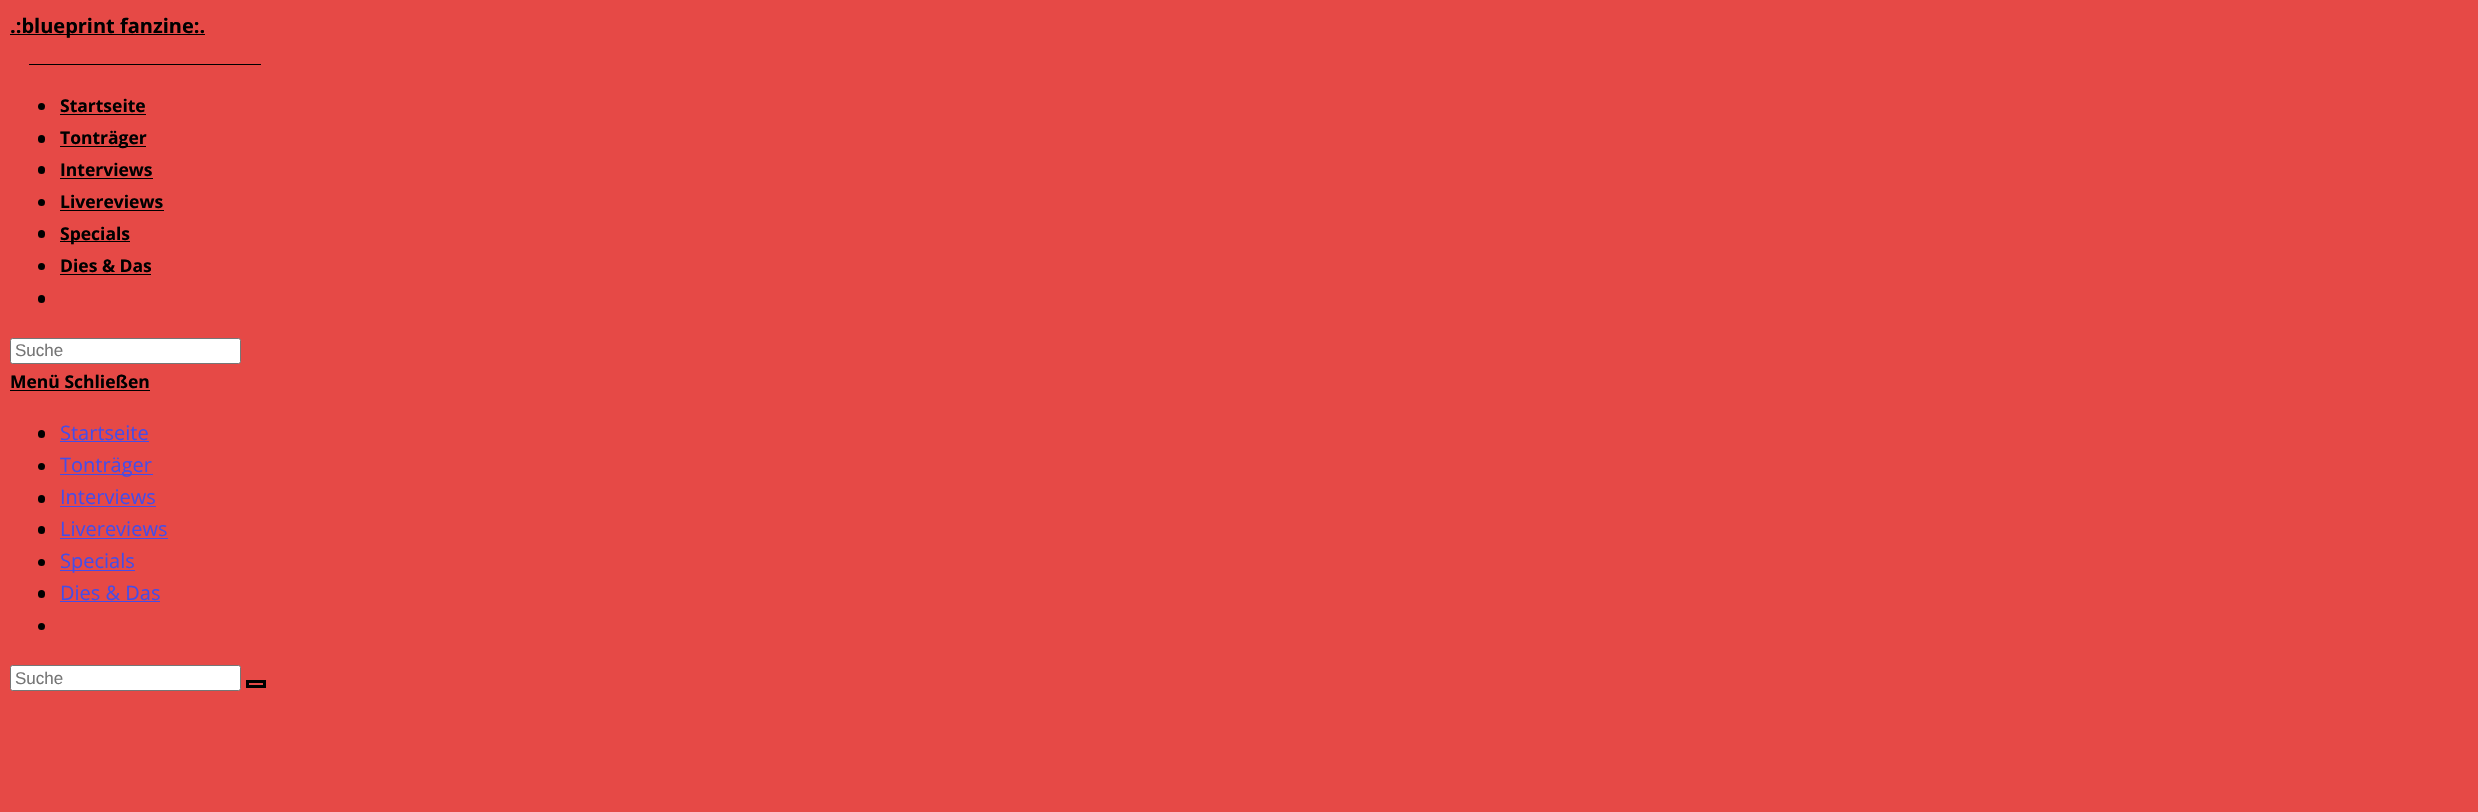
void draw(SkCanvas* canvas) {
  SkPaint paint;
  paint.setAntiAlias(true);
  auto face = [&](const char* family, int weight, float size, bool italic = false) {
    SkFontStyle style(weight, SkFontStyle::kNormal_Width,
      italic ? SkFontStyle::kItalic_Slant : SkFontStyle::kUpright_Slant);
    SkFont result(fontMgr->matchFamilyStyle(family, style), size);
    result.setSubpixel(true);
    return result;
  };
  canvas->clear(0xffe64946);
  paint.setColor(0xff000000);
  canvas->drawRect(SkRect::MakeXYWH(10, 34, 195, 1), paint);
  canvas->drawRect(SkRect::MakeXYWH(29, 64, 232, 1), paint);
  canvas->drawCircle(41.5f, 106.5f, 3.5f, paint);
  canvas->drawRect(SkRect::MakeXYWH(60, 114, 86, 1), paint);
  canvas->drawRoundRect(SkRect::MakeXYWH(38, 135, 7, 8), 3.5f, 3.5f, paint);
  canvas->drawRect(SkRect::MakeXYWH(60, 146, 86, 1), paint);
  canvas->drawRoundRect(SkRect::MakeXYWH(38, 166, 7, 8), 3.5f, 3.5f, paint);
  canvas->drawRect(SkRect::MakeXYWH(60, 178, 93, 1), paint);
  canvas->drawCircle(41.5f, 202.5f, 3.5f, paint);
  canvas->drawRect(SkRect::MakeXYWH(60, 210, 104, 1), paint);
  canvas->drawRoundRect(SkRect::MakeXYWH(38, 230, 7, 8), 3.5f, 3.5f, paint);
  canvas->drawRect(SkRect::MakeXYWH(60, 241, 70, 1), paint);
  canvas->drawCircle(41.5f, 266.5f, 3.5f, paint);
  canvas->drawRect(SkRect::MakeXYWH(60, 274, 91, 1), paint);
  canvas->drawRoundRect(SkRect::MakeXYWH(38, 295, 7, 8), 3.5f, 3.5f, paint);
  paint.setColor(0xffffffff);
  canvas->drawRoundRect(SkRect::MakeXYWH(10.5f, 338.5f, 230, 25), 2, 2, paint);
  paint.setStroke(true);
  paint.setStrokeWidth(1);
  paint.setColor(0xff767676);
  canvas->drawRoundRect(SkRect::MakeXYWH(10.5f, 338.5f, 230, 25), 2, 2, paint);
  paint.setStroke(false);
  paint.setColor(0xff000000);
  canvas->drawRect(SkRect::MakeXYWH(10, 390, 140, 1), paint);
  canvas->drawRoundRect(SkRect::MakeXYWH(38, 430, 7, 8), 3.5f, 3.5f, paint);
  paint.setColor(0xff454de8);
  canvas->drawRect(SkRect::MakeXYWH(60, 441, 89, 1), paint);
  paint.setColor(0xff000000);
  canvas->drawCircle(41.5f, 466.5f, 3.5f, paint);
  paint.setColor(0xff454de8);
  canvas->drawRect(SkRect::MakeXYWH(60, 474, 93, 1), paint);
  paint.setColor(0xff000000);
  canvas->drawRoundRect(SkRect::MakeXYWH(38, 495, 7, 8), 3.5f, 3.5f, paint);
  paint.setColor(0xff454de8);
  canvas->drawRect(SkRect::MakeXYWH(60, 506, 96, 1), paint);
  paint.setColor(0xff000000);
  canvas->drawRoundRect(SkRect::MakeXYWH(38, 526, 7, 8), 3.5f, 3.5f, paint);
  paint.setColor(0xff454de8);
  canvas->drawRect(SkRect::MakeXYWH(60, 538, 108, 1), paint);
  paint.setColor(0xff000000);
  canvas->drawCircle(41.5f, 562.5f, 3.5f, paint);
  paint.setColor(0xff454de8);
  canvas->drawRect(SkRect::MakeXYWH(60, 570, 75, 1), paint);
  paint.setColor(0xff000000);
  canvas->drawRoundRect(SkRect::MakeXYWH(38, 590, 7, 8), 3.5f, 3.5f, paint);
  paint.setColor(0xff454de8);
  canvas->drawRect(SkRect::MakeXYWH(60, 601, 100, 1), paint);
  paint.setColor(0xff000000);
  canvas->drawCircle(41.5f, 626.5f, 3.5f, paint);
  paint.setColor(0xffffffff);
  canvas->drawRoundRect(SkRect::MakeXYWH(10.5f, 665.5f, 230, 25), 2, 2, paint);
  paint.setStroke(true);
  paint.setColor(0xff767676);
  canvas->drawRoundRect(SkRect::MakeXYWH(10.5f, 665.5f, 230, 25), 2, 2, paint);
  paint.setStrokeWidth(3);
  paint.setColor(0xff000000);
  canvas->drawRect(SkRect::MakeXYWH(247.5f, 681.5f, 17, 5), paint);
  auto f0 = face("Open Sans", 700, 20);
  paint.setStroke(false);
  canvas->drawString(".:blueprint fanzine:.", 10, 33, f0, paint);
  auto f1 = face("Open Sans", 700, 17.5f);
  {
    const struct { const char* s; float x, y; } items[] = {
      {"Startseite", 60, 112},
      {"Tonträger", 60, 144},
      {"Interviews", 60, 176},
      {"Livereviews", 60, 208},
      {"Specials", 60, 240},
      {"Dies & Das", 60, 272},
    };
    for (auto [s, x, y] : items) {
      canvas->drawString(s, x, y, f1, paint);
    }
  }
  auto f2 = face("Liberation Sans", 400, 17);
  paint.setColor(0xff757575);
  canvas->drawString("Suche", 15, 356, f2, paint);
  paint.setColor(0xff000000);
  canvas->drawString("Menü Schließen", 10, 388, f1, paint);
  auto f3 = face("Open Sans", 400, 20);
  paint.setColor(0xff454de8);
  {
    const struct { const char* s; float x, y; } items[] = {
      {"Startseite", 60, 440},
      {"Tonträger", 60, 472},
      {"Interviews", 60, 504},
      {"Livereviews", 60, 536},
      {"Specials", 60, 568},
      {"Dies & Das", 60, 600},
    };
    for (auto [s, x, y] : items) {
      canvas->drawString(s, x, y, f3, paint);
    }
  }
  paint.setColor(0xff757575);
  canvas->drawString("Suche", 15, 684, f2, paint);
}
